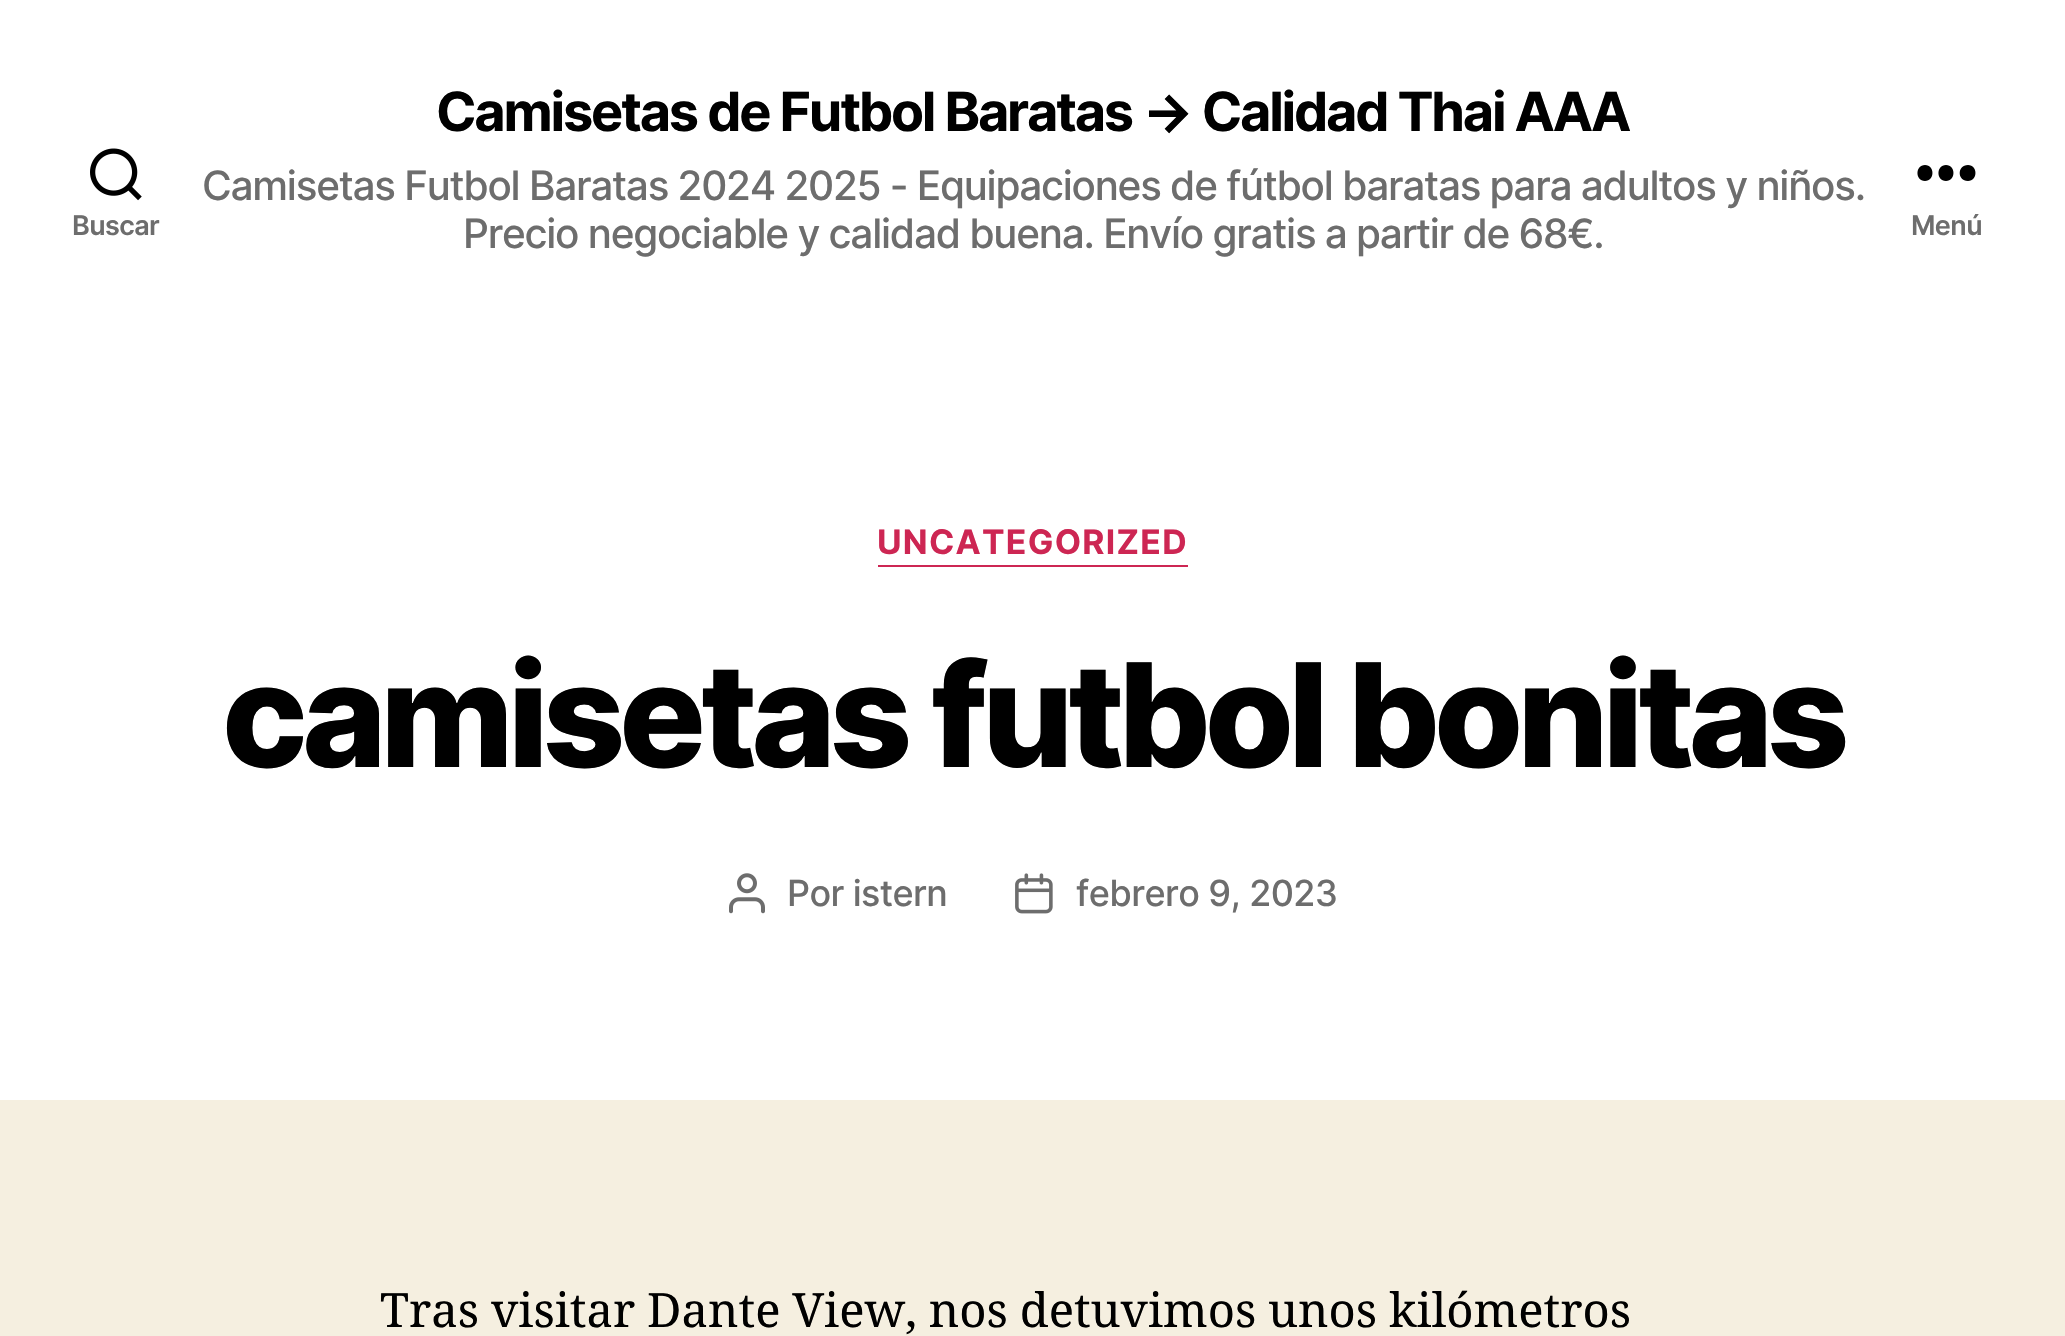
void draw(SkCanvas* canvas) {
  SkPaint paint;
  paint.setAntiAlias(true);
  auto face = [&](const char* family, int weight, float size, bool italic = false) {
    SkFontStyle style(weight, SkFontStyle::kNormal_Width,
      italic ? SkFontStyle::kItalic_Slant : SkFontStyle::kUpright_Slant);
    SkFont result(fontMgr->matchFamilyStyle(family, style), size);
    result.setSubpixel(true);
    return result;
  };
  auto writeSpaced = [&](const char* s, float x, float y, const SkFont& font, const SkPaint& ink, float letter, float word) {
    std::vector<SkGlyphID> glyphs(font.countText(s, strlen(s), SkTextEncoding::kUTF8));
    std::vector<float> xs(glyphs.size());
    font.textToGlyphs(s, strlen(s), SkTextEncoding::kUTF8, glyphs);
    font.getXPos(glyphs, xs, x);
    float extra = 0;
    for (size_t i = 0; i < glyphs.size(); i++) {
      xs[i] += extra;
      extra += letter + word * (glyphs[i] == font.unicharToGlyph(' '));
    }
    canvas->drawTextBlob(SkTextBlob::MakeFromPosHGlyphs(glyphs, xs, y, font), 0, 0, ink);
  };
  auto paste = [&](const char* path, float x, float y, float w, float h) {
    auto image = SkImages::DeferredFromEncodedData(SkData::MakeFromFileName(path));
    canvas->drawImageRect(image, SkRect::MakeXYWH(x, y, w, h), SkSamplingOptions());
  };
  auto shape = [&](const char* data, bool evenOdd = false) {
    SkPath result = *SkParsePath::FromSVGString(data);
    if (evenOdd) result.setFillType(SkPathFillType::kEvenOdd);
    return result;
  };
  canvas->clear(0xfff5efe0);
  paint.setColor(0xffffffff);
  canvas->drawRect(SkRect::MakeXYWH(0, 0, 2065, 1100), paint);
  paste("img/1.png", 90, 148, 52, 53);
  paint.setColor(0xff000000);
  canvas->drawPath(shape("M1925 181C1915 181 1915 165 1925 165C1935 165 1935 181 1925 181ZM1946 181C1936 181 1936 165 1946 165C1956 165 1956 181 1946 181ZM1968 181C1957 181 1957 165 1968 165C1978 165 1978 181 1968 181Z", true), paint);
  paint.setColor(0xffcd2653);
  canvas->drawRect(SkRect::MakeXYWH(878, 565, 310, 2), paint);
  paste("img/2.png", 729, 873, 36, 41);
  paste("img/3.png", 1015, 873, 38, 41);
  auto f0 = face("Inter", 600, 27);
  paint.setColor(0xff6d6d6d);
  writeSpaced("Buscar", 72, 235, f0, paint, -0.6f, 0);
  auto f1 = face("Inter", 700, 54);
  paint.setColor(0xff000000);
  writeSpaced("Camisetas de Futbol Baratas → Calidad Thai AAA", 436, 131, f1, paint, -2.25f, 0);
  auto f2 = face("Inter", 500, 40.5f);
  paint.setColor(0xff6d6d6d);
  writeSpaced("Camisetas Futbol Baratas 2024 2025 - Equipaciones de fútbol baratas para adultos y niños.", 202, 200, f2, paint, -1.25f, 0);
  writeSpaced("Precio negociable y calidad buena. Envío gratis a partir de 68€.", 463, 248, f2, paint, -1.25f, 0);
  writeSpaced("Menú", 1911, 235, f0, paint, -0.6f, 0);
  auto f3 = face("Inter", 700, 33.75f);
  paint.setColor(0xffcd2653);
  writeSpaced("UNCATEGORIZED", 877, 554, f3, paint, 1.25f, 0);
  auto f4 = face("Inter", 800, 144);
  paint.setColor(0xff000000);
  writeSpaced("camisetas futbol bonitas", 222, 767, f4, paint, -6, 0);
  auto f5 = face("Inter", 500, 36);
  paint.setColor(0xff6d6d6d);
  writeSpaced("Por istern", 787, 906, f5, paint, -0.6f, 0);
  writeSpaced("febrero 9, 2023", 1076, 906, f5, paint, -0.6f, 0);
  auto f6 = face("Noto Serif", 400, 47.25f);
  paint.setColor(0xff000000);
  writeSpaced("Tras visitar Dante View, nos detuvimos unos kilómetros", 380, 1327, f6, paint, 0, -0.5f);
}
